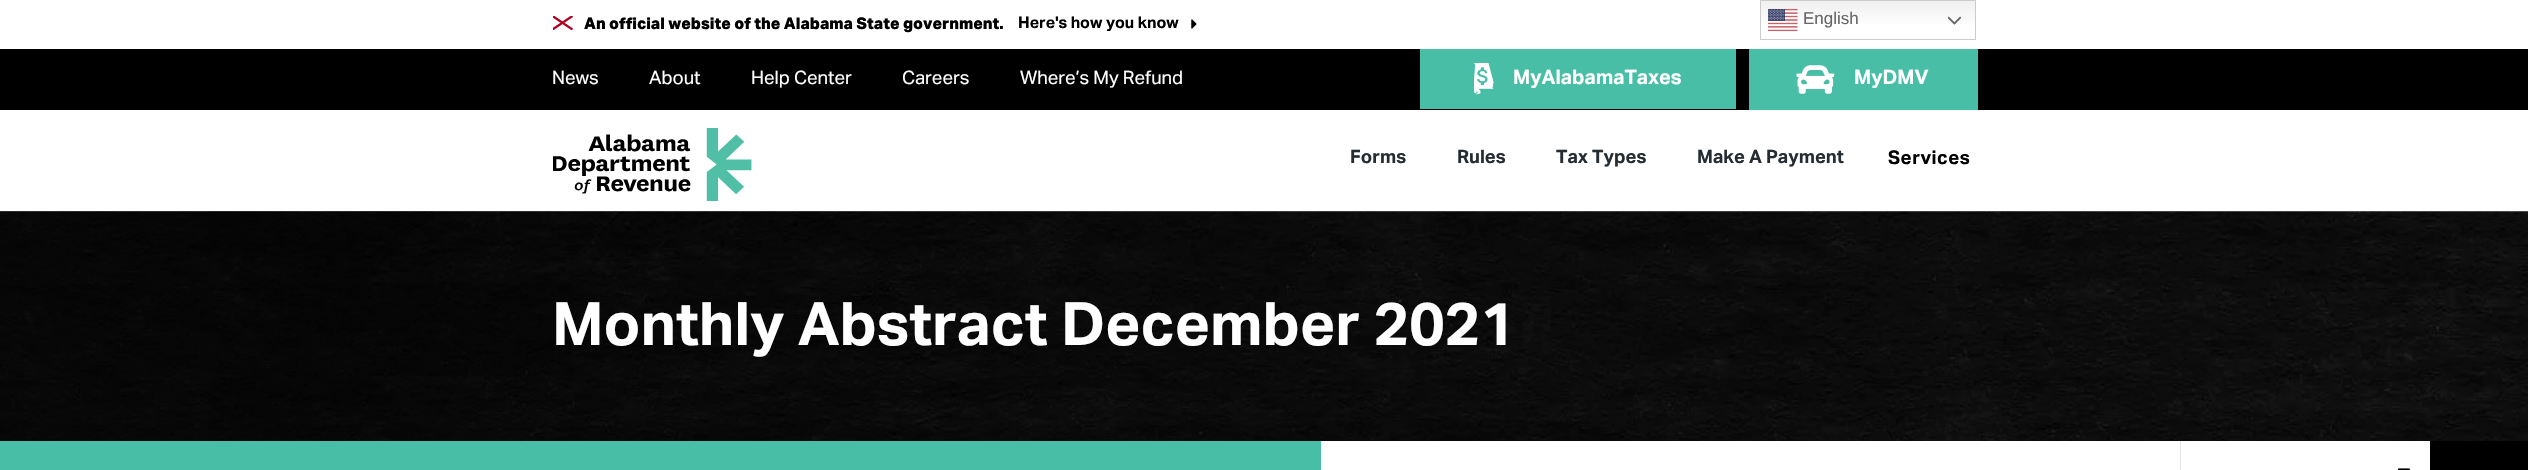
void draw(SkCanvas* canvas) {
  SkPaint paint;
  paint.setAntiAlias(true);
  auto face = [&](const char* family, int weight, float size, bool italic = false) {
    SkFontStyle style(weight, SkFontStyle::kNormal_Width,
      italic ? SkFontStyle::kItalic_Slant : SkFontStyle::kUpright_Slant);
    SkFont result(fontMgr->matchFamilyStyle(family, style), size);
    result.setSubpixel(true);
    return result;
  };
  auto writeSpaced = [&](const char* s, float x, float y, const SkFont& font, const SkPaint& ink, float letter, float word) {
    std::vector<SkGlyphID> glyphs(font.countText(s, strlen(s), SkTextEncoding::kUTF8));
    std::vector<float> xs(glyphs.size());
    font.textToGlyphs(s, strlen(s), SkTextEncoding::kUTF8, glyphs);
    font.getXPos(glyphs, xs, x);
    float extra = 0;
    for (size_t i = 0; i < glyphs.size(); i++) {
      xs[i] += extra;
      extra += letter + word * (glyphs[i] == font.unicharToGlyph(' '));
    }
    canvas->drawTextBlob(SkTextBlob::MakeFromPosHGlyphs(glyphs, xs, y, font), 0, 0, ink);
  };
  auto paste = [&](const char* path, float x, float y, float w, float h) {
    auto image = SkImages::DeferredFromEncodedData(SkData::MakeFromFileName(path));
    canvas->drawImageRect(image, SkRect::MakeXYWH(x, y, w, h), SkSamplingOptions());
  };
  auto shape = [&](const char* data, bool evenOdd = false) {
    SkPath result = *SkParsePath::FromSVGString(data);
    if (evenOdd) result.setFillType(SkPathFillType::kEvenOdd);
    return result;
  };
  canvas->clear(0xffffffff);
  canvas->save();
  canvas->clipRect(SkRect::MakeXYWH(553, 16, 20, 14));
  paint.setStroke(true);
  paint.setStrokeWidth(2.3f);
  paint.setColor(0xffb10021);
  canvas->drawPath(shape("M552.5 16L572.5 29.5M552.5 29.5L572.5 16"), paint);
  canvas->restore();
  paste("img/1.png", 1191, 19, 6, 10);
  paint.setStroke(false);
  {
    const SkColor colors[] = {0xffefefef, 0xffffffff};
    const float stops[] = {0, 0.7f};
    const SkPoint ends[] = {{1868, 0}, {1868, 40}};
    paint.setShader(SkGradientShader::MakeLinear(ends, colors, stops, 2, SkTileMode::kClamp));
    paint.setAlpha(255);
  }
  canvas->drawRect(SkRect::MakeXYWH(1761, 1, 214, 23), paint);
  paint.setStroke(true);
  paint.setStrokeWidth(1);
  paint.setShader(nullptr);
  paint.setColor(0xffcccccc);
  canvas->drawRect(SkRect::MakeXYWH(1760.5f, 0.5f, 215, 39), paint);
  paste("img/2.png", 1768, 8, 30, 24);
  paste("img/3.png", 1948, 16, 13, 9);
  paint.setStroke(false);
  paint.setColor(0xff000000);
  canvas->drawRect(SkRect::MakeXYWH(0, 49, 2528, 61), paint);
  paint.setColor(0xff49bea6);
  canvas->drawRect(SkRect::MakeXYWH(1420, 49, 316, 60), paint);
  paste("img/4.png", 1474, 63, 20, 32);
  canvas->drawRect(SkRect::MakeXYWH(1749, 49, 229, 61), paint);
  paste("img/5.png", 1796, 65, 39, 29);
  paste("img/6.png", 553, 128, 199, 73);
  paste("img/7.png", 0, 211, 2528, 230);
  paste("img/8.png", 0, 211, 2204, 230);
  canvas->drawRect(SkRect::MakeXYWH(0, 441, 1321, 29), paint);
  paint.setColor(0xffe1e5eb);
  canvas->drawRect(SkRect::MakeXYWH(2180, 441, 1, 29), paint);
  paste("img/9.png", 2398, 468, 12, 2);
  paint.setColor(0xff000000);
  canvas->drawRect(SkRect::MakeXYWH(2430, 441, 98, 29), paint);
  auto f0 = face("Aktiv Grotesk", 700, 16);
  canvas->drawString("An official website of the Alabama State government.", 584, 29, f0, paint);
  auto f1 = face("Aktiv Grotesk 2", 700, 16);
  canvas->drawString("Here's how you know", 1018, 28, f1, paint);
  auto f2 = face("Liberation Sans", 400, 17);
  paint.setColor(0xff666666);
  canvas->drawString("English", 1803, 24, f2, paint);
  auto f3 = face("Aktiv Grotesk", 400, 18.5f);
  paint.setColor(0xffffffff);
  {
    const struct { const char* s; float x, y; } items[] = {
      {"News", 552, 84},
      {"About", 649, 84},
      {"Help Center", 751, 84},
      {"Careers", 902, 84},
      {"Where’s My Refund", 1020, 84},
    };
    for (auto [s, x, y] : items) {
      canvas->drawString(s, x, y, f3, paint);
    }
  }
  auto f4 = face("Aktiv Grotesk 2", 700, 20);
  canvas->drawString("MyAlabamaTaxes", 1513, 84, f4, paint);
  canvas->drawString("MyDMV", 1854, 84, f4, paint);
  auto f5 = face("Aktiv Grotesk 2", 700, 18.5f);
  paint.setColor(0xff252c32);
  {
    const struct { const char* s; float x, y; } items[] = {
      {"Forms", 1350, 163},
      {"Rules", 1457, 163},
      {"Tax Types", 1556, 163},
      {"Make A Payment", 1697, 163},
    };
    for (auto [s, x, y] : items) {
      canvas->drawString(s, x, y, f5, paint);
    }
  }
  auto f6 = face("Aktiv Grotesk 2", 700, 18.75f);
  paint.setColor(0xff000000);
  writeSpaced("Services", 1888, 164, f6, paint, 0.5f, 0);
  auto f7 = face("Aktiv Grotesk 2", 700, 60);
  paint.setColor(0xffffffff);
  canvas->drawString("Monthly Abstract December 2021", 552, 345, f7, paint);
}
